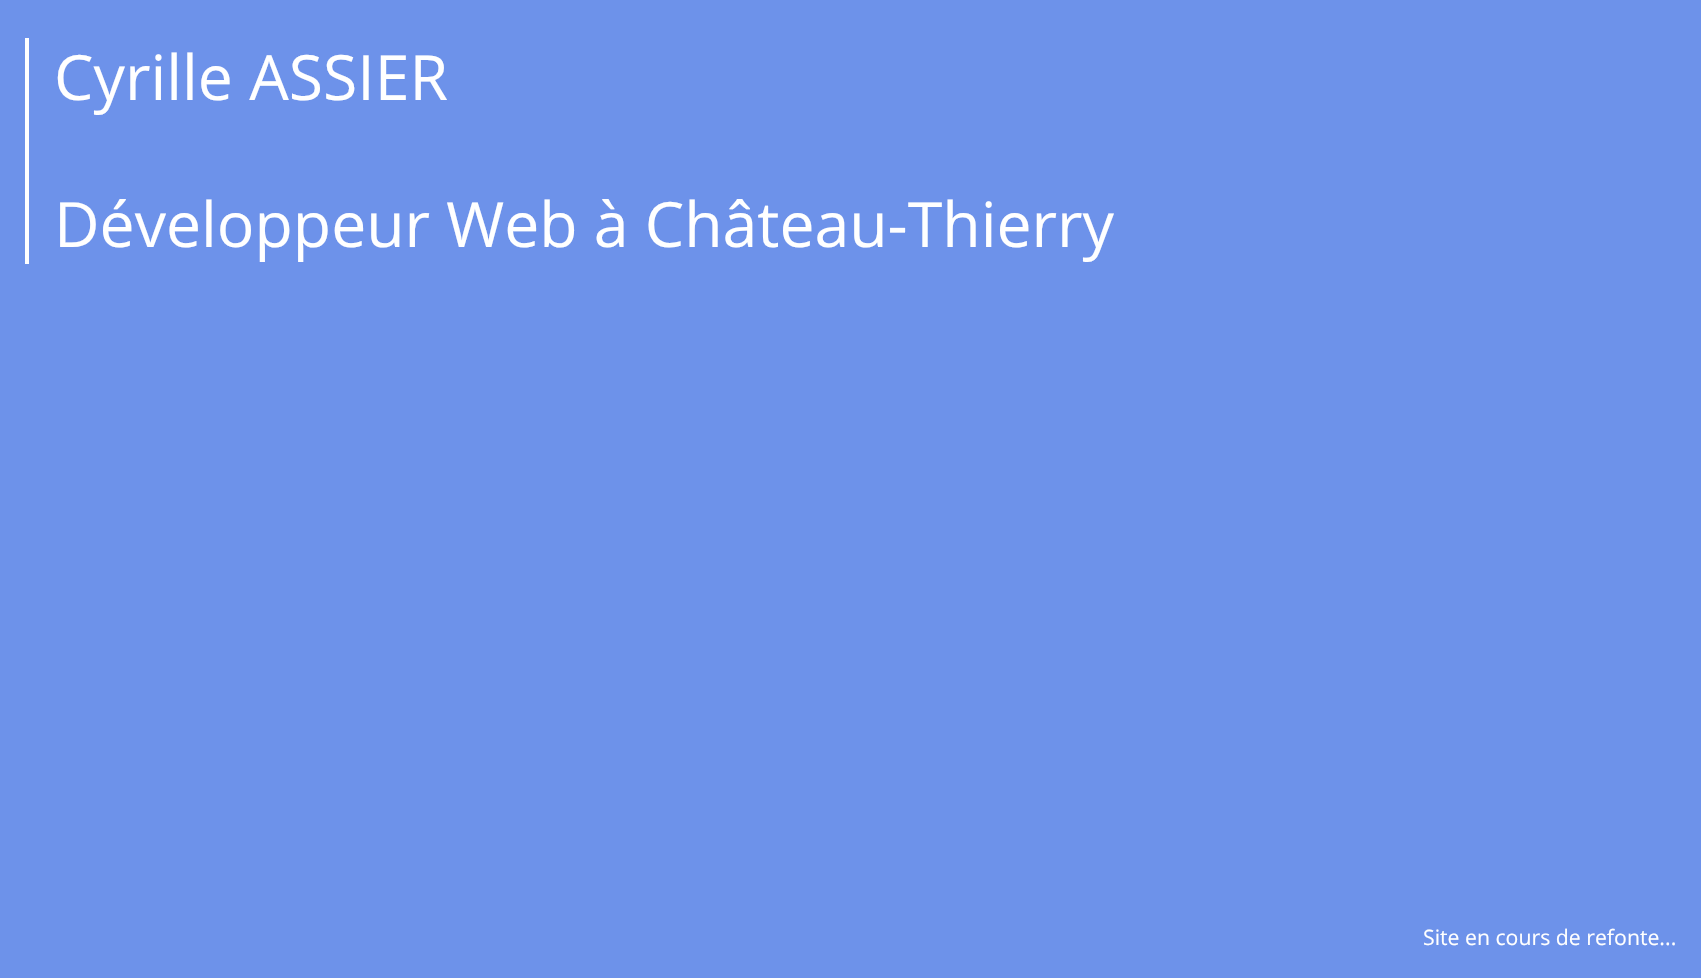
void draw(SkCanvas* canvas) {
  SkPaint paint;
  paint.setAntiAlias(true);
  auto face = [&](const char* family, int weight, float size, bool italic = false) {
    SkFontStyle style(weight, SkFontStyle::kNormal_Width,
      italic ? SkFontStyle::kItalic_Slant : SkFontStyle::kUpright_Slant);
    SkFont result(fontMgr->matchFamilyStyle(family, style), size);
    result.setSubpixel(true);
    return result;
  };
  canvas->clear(0xff6d92ea);
  paint.setColor(0xffffffff);
  canvas->drawRect(SkRect::MakeXYWH(25, 38, 4, 226), paint);
  auto f0 = face("Open Sans", 400, 62.5f);
  canvas->drawString("Cyrille ASSIER", 54, 100, f0, paint);
  canvas->drawString("Développeur Web à Château-Thierry", 54, 247, f0, paint);
  auto f1 = face("Open Sans", 400, 21.25f);
  canvas->drawString("Site en cours de refonte...", 1423, 945, f1, paint);
}
